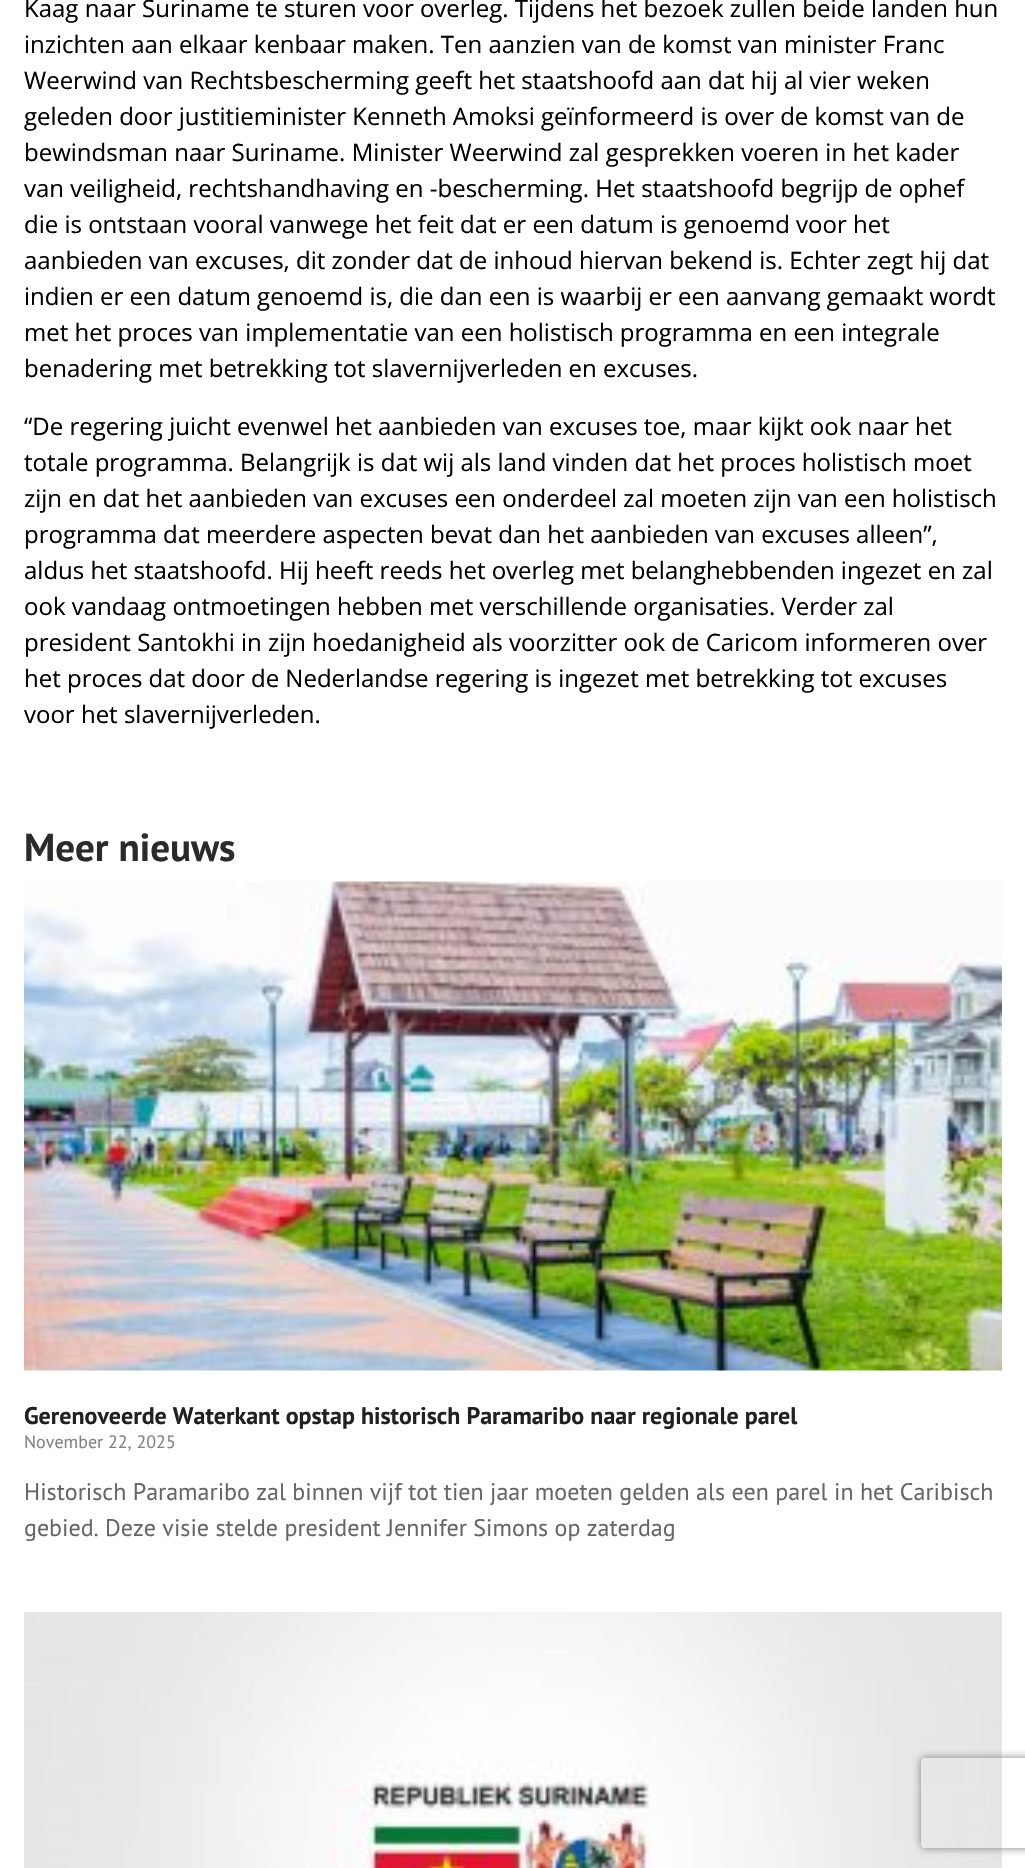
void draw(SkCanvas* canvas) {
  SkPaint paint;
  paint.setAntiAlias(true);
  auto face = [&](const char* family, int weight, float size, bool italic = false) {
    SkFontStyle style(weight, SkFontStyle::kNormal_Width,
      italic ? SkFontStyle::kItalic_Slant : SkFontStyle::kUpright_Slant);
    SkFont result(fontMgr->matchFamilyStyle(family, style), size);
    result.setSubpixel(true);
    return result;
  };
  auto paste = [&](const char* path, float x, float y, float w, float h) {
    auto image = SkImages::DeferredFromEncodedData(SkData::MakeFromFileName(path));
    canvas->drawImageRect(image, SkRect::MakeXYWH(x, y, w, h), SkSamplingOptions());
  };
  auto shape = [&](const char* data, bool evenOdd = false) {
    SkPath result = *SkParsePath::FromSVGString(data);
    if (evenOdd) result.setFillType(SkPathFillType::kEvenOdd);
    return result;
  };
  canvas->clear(0xffffffff);
  paste("img/1.png", 24, 881, 978, 490);
  paste("img/2.png", 24, 1612, 978, 256);
  canvas->save();
  canvas->clipPath(shape("M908 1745H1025V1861H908ZM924 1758H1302C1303.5 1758 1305 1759.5 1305 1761V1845C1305 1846.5 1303.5 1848 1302 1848H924C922.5 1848 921 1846.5 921 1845V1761C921 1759.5 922.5 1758 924 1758Z", true), true);
  paint.setColor(0xff808080);
  paint.setMaskFilter(SkMaskFilter::MakeBlur(kNormal_SkBlurStyle, 4));
  canvas->drawRoundRect(SkRect::MakeXYWH(921, 1758, 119, 90), 3, 3, paint);
  paint.setMaskFilter(nullptr);
  canvas->restore();
  auto f0 = face("Open Sans", 400, 24);
  paint.setColor(0xff000000);
  {
    const struct { const char* s; float x, y; } items[] = {
      {"Kaag naar Suriname te sturen voor overleg. Tijdens het bezoek zullen beide landen hun", 24, 17},
      {"inzichten aan elkaar kenbaar maken. Ten aanzien van de komst van minister Franc", 24, 53},
      {"Weerwind van Rechtsbescherming geeft het staatshoofd aan dat hij al vier weken", 24, 89},
      {"geleden door justitieminister Kenneth Amoksi geïnformeerd is over de komst van de", 24, 125},
      {"bewindsman naar Suriname. Minister Weerwind zal gesprekken voeren in het kader", 24, 161},
      {"van veiligheid, rechtshandhaving en -bescherming. Het staatshoofd begrijp de ophef", 24, 197},
      {"die is ontstaan vooral vanwege het feit dat er een datum is genoemd voor het", 24, 233},
      {"aanbieden van excuses, dit zonder dat de inhoud hiervan bekend is. Echter zegt hij dat", 24, 269},
      {"indien er een datum genoemd is, die dan een is waarbij er een aanvang gemaakt wordt", 24, 305},
      {"met het proces van implementatie van een holistisch programma en een integrale", 24, 341},
      {"benadering met betrekking tot slavernijverleden en excuses.", 24, 377},
      {"“De regering juicht evenwel het aanbieden van excuses toe, maar kijkt ook naar het", 24, 435},
      {"totale programma. Belangrijk is dat wij als land vinden dat het proces holistisch moet", 24, 471},
      {"zijn en dat het aanbieden van excuses een onderdeel zal moeten zijn van een holistisch", 24, 507},
      {"programma dat meerdere aspecten bevat dan het aanbieden van excuses alleen”,", 24, 543},
      {"aldus het staatshoofd. Hij heeft reeds het overleg met belanghebbenden ingezet en zal", 24, 579},
      {"ook vandaag ontmoetingen hebben met verschillende organisaties. Verder zal", 24, 615},
      {"president Santokhi in zijn hoedanigheid als voorzitter ook de Caricom informeren over", 24, 651},
      {"het proces dat door de Nederlandse regering is ingezet met betrekking tot excuses", 24, 687},
      {"voor het slavernijverleden.", 24, 723},
    };
    for (auto [s, x, y] : items) {
      canvas->drawString(s, x, y, f0, paint);
    }
  }
  auto f1 = face("PT Sans", 700, 39);
  paint.setColor(0xff2b2b2b);
  canvas->drawString("Meer nieuws", 24, 861, f1, paint);
  auto f2 = face("PT Sans", 700, 24);
  paint.setColor(0xff212121);
  canvas->drawString("Gerenoveerde Waterkant opstap historisch Paramaribo naar regionale parel", 24, 1424, f2, paint);
  auto f3 = face("PT Sans", 400, 18);
  paint.setColor(0xff828282);
  canvas->drawString("November 22, 2025", 24, 1448, f3, paint);
  auto f4 = face("PT Sans", 400, 24);
  paint.setColor(0xff666666);
  canvas->drawString("Historisch Paramaribo zal binnen vijf tot tien jaar moeten gelden als een parel in het Caribisch", 24, 1500, f4, paint);
  canvas->drawString("gebied. Deze visie stelde president Jennifer Simons op zaterdag", 24, 1536, f4, paint);
}
